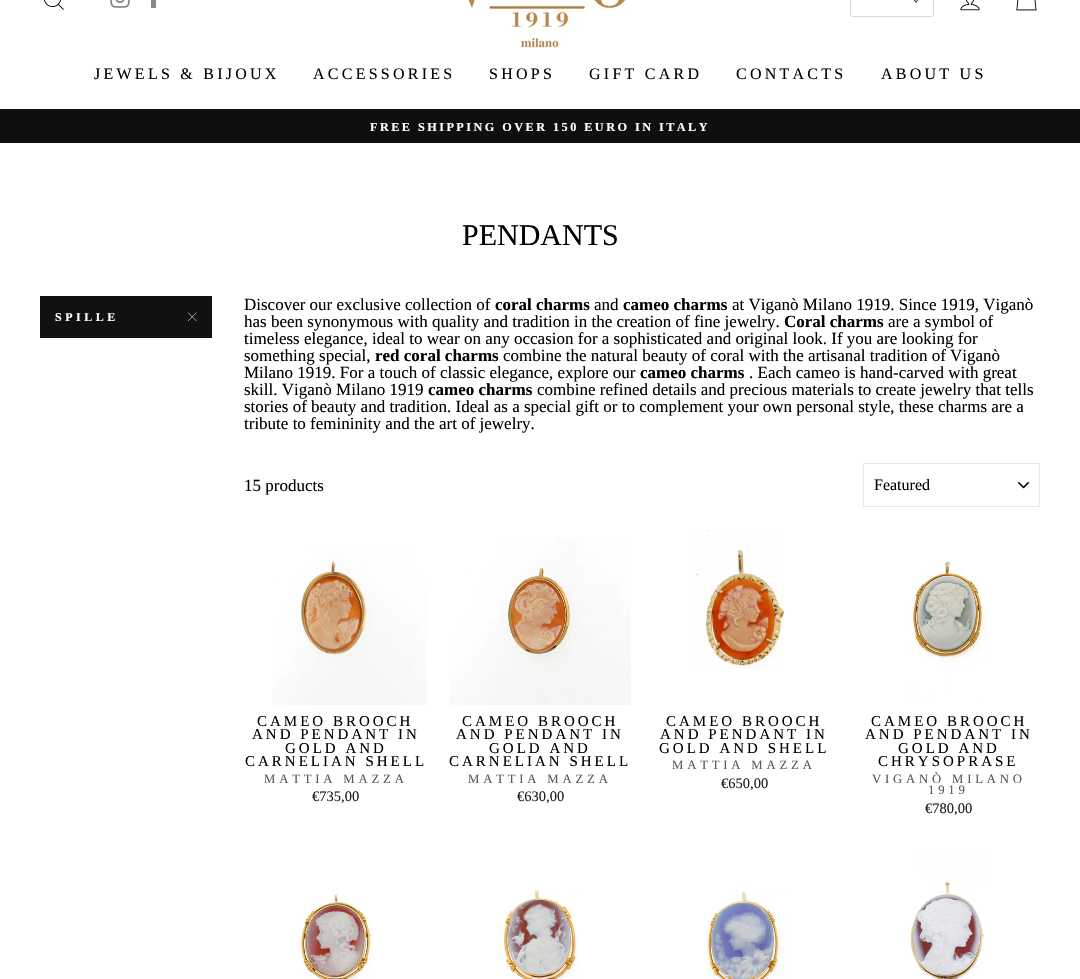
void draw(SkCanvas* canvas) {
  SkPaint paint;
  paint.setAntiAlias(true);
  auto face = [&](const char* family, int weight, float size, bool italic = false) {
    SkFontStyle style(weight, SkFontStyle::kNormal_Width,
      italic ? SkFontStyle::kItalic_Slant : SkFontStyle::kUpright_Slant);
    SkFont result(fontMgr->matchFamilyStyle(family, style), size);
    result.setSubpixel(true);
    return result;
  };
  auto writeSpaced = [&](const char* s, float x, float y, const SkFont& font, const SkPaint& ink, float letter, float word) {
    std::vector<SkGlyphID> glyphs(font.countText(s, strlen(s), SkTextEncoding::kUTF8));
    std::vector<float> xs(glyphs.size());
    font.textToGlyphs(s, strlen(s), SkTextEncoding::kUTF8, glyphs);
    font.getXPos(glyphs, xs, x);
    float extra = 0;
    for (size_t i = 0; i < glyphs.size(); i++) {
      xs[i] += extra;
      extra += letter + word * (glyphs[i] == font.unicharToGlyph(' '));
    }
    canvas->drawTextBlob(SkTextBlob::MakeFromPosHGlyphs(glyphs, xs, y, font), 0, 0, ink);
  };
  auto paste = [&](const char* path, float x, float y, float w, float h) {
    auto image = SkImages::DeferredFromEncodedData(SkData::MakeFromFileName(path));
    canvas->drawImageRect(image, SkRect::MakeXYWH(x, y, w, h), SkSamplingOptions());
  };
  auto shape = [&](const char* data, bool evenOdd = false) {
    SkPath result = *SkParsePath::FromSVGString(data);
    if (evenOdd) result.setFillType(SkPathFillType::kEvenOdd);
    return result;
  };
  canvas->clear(0xffffffff);
  paste("img/1.png", 44, 0, 20, 10);
  paste("img/2.png", 110, 0, 20, 8);
  paint.setColor(0xff898989);
  canvas->drawRect(SkRect::MakeXYWH(151, 0, 5, 8), paint);
  paste("img/3.png", 467, 0, 160, 48);
  paint.setStroke(true);
  paint.setStrokeWidth(1);
  paint.setColor(0xffd9d9d9);
  canvas->drawRoundRect(SkRect::MakeXYWH(850.5f, -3.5f, 83, 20), 2.5f, 2.5f, paint);
  paint.setStroke(false);
  paint.setColor(0xff1a1a1a);
  canvas->drawPath(shape("M920.5-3L921-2.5L916 2.5L915.5 2Z"), paint);
  canvas->drawPath(shape("M912-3L917 2L916 2.5L911.5-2.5Z"), paint);
  paste("img/4.png", 960, 0, 20, 11);
  paste("img/5.png", 1016, 0, 21, 11);
  paint.setColor(0xff0f0f0f);
  canvas->drawRect(SkRect::MakeXYWH(0, 109, 1080, 34), paint);
  paint.setColor(0xff111111);
  canvas->drawRect(SkRect::MakeXYWH(40, 296, 172, 42), paint);
  paint.setStroke(true);
  paint.setStrokeWidth(0.6f);
  paint.setColor(0xffffffff);
  canvas->drawPath(shape("M188 312.5L196.5 321M196.5 312.5L188 321"), paint);
  paste("img/6.png", 1018, 482, 11, 7);
  paint.setStrokeWidth(1);
  paint.setColor(0xffe8e8e1);
  canvas->drawRect(SkRect::MakeXYWH(863.5f, 463.5f, 176, 43), paint);
  paste("img/7.png", 272, 546, 155, 159);
  paste("img/8.png", 449, 537, 182, 168);
  paste("img/9.png", 695, 530, 89, 139);
  paste("img/10.png", 911, 561, 76, 140);
  paste("img/11.png", 301, 894, 74, 85);
  paste("img/12.png", 503, 888, 76, 91);
  paste("img/13.png", 705, 891, 80, 88);
  paste("img/14.png", 910, 851, 75, 128);
  auto f0 = face("Liberation Serif", 400, 16);
  paint.setStroke(false);
  paint.setColor(0xff000000);
  {
    const struct { const char* s; float x, y; } items[] = {
      {"JEWELS & BIJOUX", 94, 79},
      {"ACCESSORIES", 313, 79},
      {"SHOPS", 489, 79},
      {"GIFT CARD", 589, 79},
      {"CONTACTS", 736, 79},
      {"ABOUT US", 881, 79},
    };
    for (auto [s, x, y] : items) {
      writeSpaced(s, x, y, f0, paint, 3.25f, 0);
    }
  }
  auto f1 = face("Liberation Serif", 700, 12.25f);
  paint.setColor(0xffffffff);
  writeSpaced("FREE SHIPPING OVER 150 EURO IN ITALY", 370, 131, f1, paint, 2.45f, 0);
  auto f2 = face("Liberation Serif", 400, 30);
  paint.setColor(0xff000000);
  canvas->drawString("PENDANTS", 462, 245, f2, paint);
  auto f3 = face("Liberation Serif", 700, 12);
  paint.setColor(0xffffffff);
  writeSpaced("SPILLE", 55, 321, f3, paint, 3.5f, 0);
  auto f4 = face("Liberation Serif", 400, 17);
  paint.setColor(0xff000000);
  canvas->drawString("Discover our exclusive collection of", 244, 310, f4, paint);
  auto f5 = face("Liberation Serif", 700, 17);
  canvas->drawString("coral charms", 495, 310, f5, paint);
  canvas->drawString("and", 594, 310, f4, paint);
  canvas->drawString("cameo charms", 623, 310, f5, paint);
  canvas->drawString("at Viganò Milano 1919. Since 1919, Viganò", 732, 310, f4, paint);
  canvas->drawString("has been synonymous with quality and tradition in the creation of fine jewelry.", 244, 327, f4, paint);
  canvas->drawString("Coral charms", 784, 327, f5, paint);
  {
    const struct { const char* s; float x, y; } items[] = {
      {"are a symbol of", 888, 327},
      {"timeless elegance, ideal to wear on any occasion for a sophisticated and original look. If you are looking for", 244, 344},
      {"something special,", 244, 361},
    };
    for (auto [s, x, y] : items) {
      canvas->drawString(s, x, y, f4, paint);
    }
  }
  canvas->drawString("red coral charms", 375, 361, f5, paint);
  canvas->drawString("combine the natural beauty of coral with the artisanal tradition of Viganò", 503, 361, f4, paint);
  canvas->drawString("Milano 1919. For a touch of classic elegance, explore our", 244, 378, f4, paint);
  canvas->drawString("cameo charms", 640, 378, f5, paint);
  canvas->drawString(". Each cameo is hand-carved with great", 749, 378, f4, paint);
  canvas->drawString("skill. Viganò Milano 1919", 244, 395, f4, paint);
  canvas->drawString("cameo charms", 428, 395, f5, paint);
  {
    const struct { const char* s; float x, y; } items[] = {
      {"combine refined details and precious materials to create jewelry that tells", 537, 395},
      {"stories of beauty and tradition. Ideal as a special gift or to complement your own personal style, these charms are a", 244, 412},
      {"tribute to femininity and the art of jewelry.", 244, 429},
      {"15 products", 244, 491},
    };
    for (auto [s, x, y] : items) {
      canvas->drawString(s, x, y, f4, paint);
    }
  }
  canvas->drawString("Featured", 874, 490, f0, paint);
  auto f6 = face("Liberation Serif", 400, 15);
  {
    const struct { const char* s; float x, y; } items[] = {
      {"CAMEO BROOCH", 257, 726},
      {"AND PENDANT IN", 252, 739},
      {"GOLD AND", 285, 753},
      {"CARNELIAN SHELL", 245, 766},
    };
    for (auto [s, x, y] : items) {
      writeSpaced(s, x, y, f6, paint, 3, 0);
    }
  }
  auto f7 = face("Liberation Serif", 400, 12.75f);
  paint.setColor(0xff595959);
  writeSpaced("MATTIA MAZZA", 264, 783, f7, paint, 3.8f, 0);
  auto f8 = face("Liberation Serif", 400, 14.5f);
  paint.setColor(0xff1c1d1d);
  canvas->drawString("€735,00", 312, 801, f8, paint);
  paint.setColor(0xff000000);
  {
    const struct { const char* s; float x, y; } items[] = {
      {"CAMEO BROOCH", 462, 726},
      {"AND PENDANT IN", 456, 739},
      {"GOLD AND", 489, 753},
      {"CARNELIAN SHELL", 449, 766},
    };
    for (auto [s, x, y] : items) {
      writeSpaced(s, x, y, f6, paint, 3, 0);
    }
  }
  paint.setColor(0xff595959);
  writeSpaced("MATTIA MAZZA", 468, 783, f7, paint, 3.8f, 0);
  paint.setColor(0xff1c1d1d);
  canvas->drawString("€630,00", 517, 801, f8, paint);
  paint.setColor(0xff000000);
  {
    const struct { const char* s; float x, y; } items[] = {
      {"CAMEO BROOCH", 666, 726},
      {"AND PENDANT IN", 660, 739},
      {"GOLD AND SHELL", 659, 753},
    };
    for (auto [s, x, y] : items) {
      writeSpaced(s, x, y, f6, paint, 3, 0);
    }
  }
  paint.setColor(0xff595959);
  writeSpaced("MATTIA MAZZA", 672, 769, f7, paint, 3.8f, 0);
  paint.setColor(0xff1c1d1d);
  canvas->drawString("€650,00", 721, 788, f8, paint);
  paint.setColor(0xff000000);
  {
    const struct { const char* s; float x, y; } items[] = {
      {"CAMEO BROOCH", 871, 726},
      {"AND PENDANT IN", 865, 739},
      {"GOLD AND", 898, 753},
      {"CHRYSOPRASE", 878, 766},
    };
    for (auto [s, x, y] : items) {
      writeSpaced(s, x, y, f6, paint, 3, 0);
    }
  }
  paint.setColor(0xff595959);
  writeSpaced("VIGANÒ MILANO", 872, 783, f7, paint, 3.8f, 0);
  writeSpaced("1919", 928, 794, f7, paint, 3.8f, 0);
  paint.setColor(0xff1c1d1d);
  canvas->drawString("€780,00", 925, 813, f8, paint);
}
